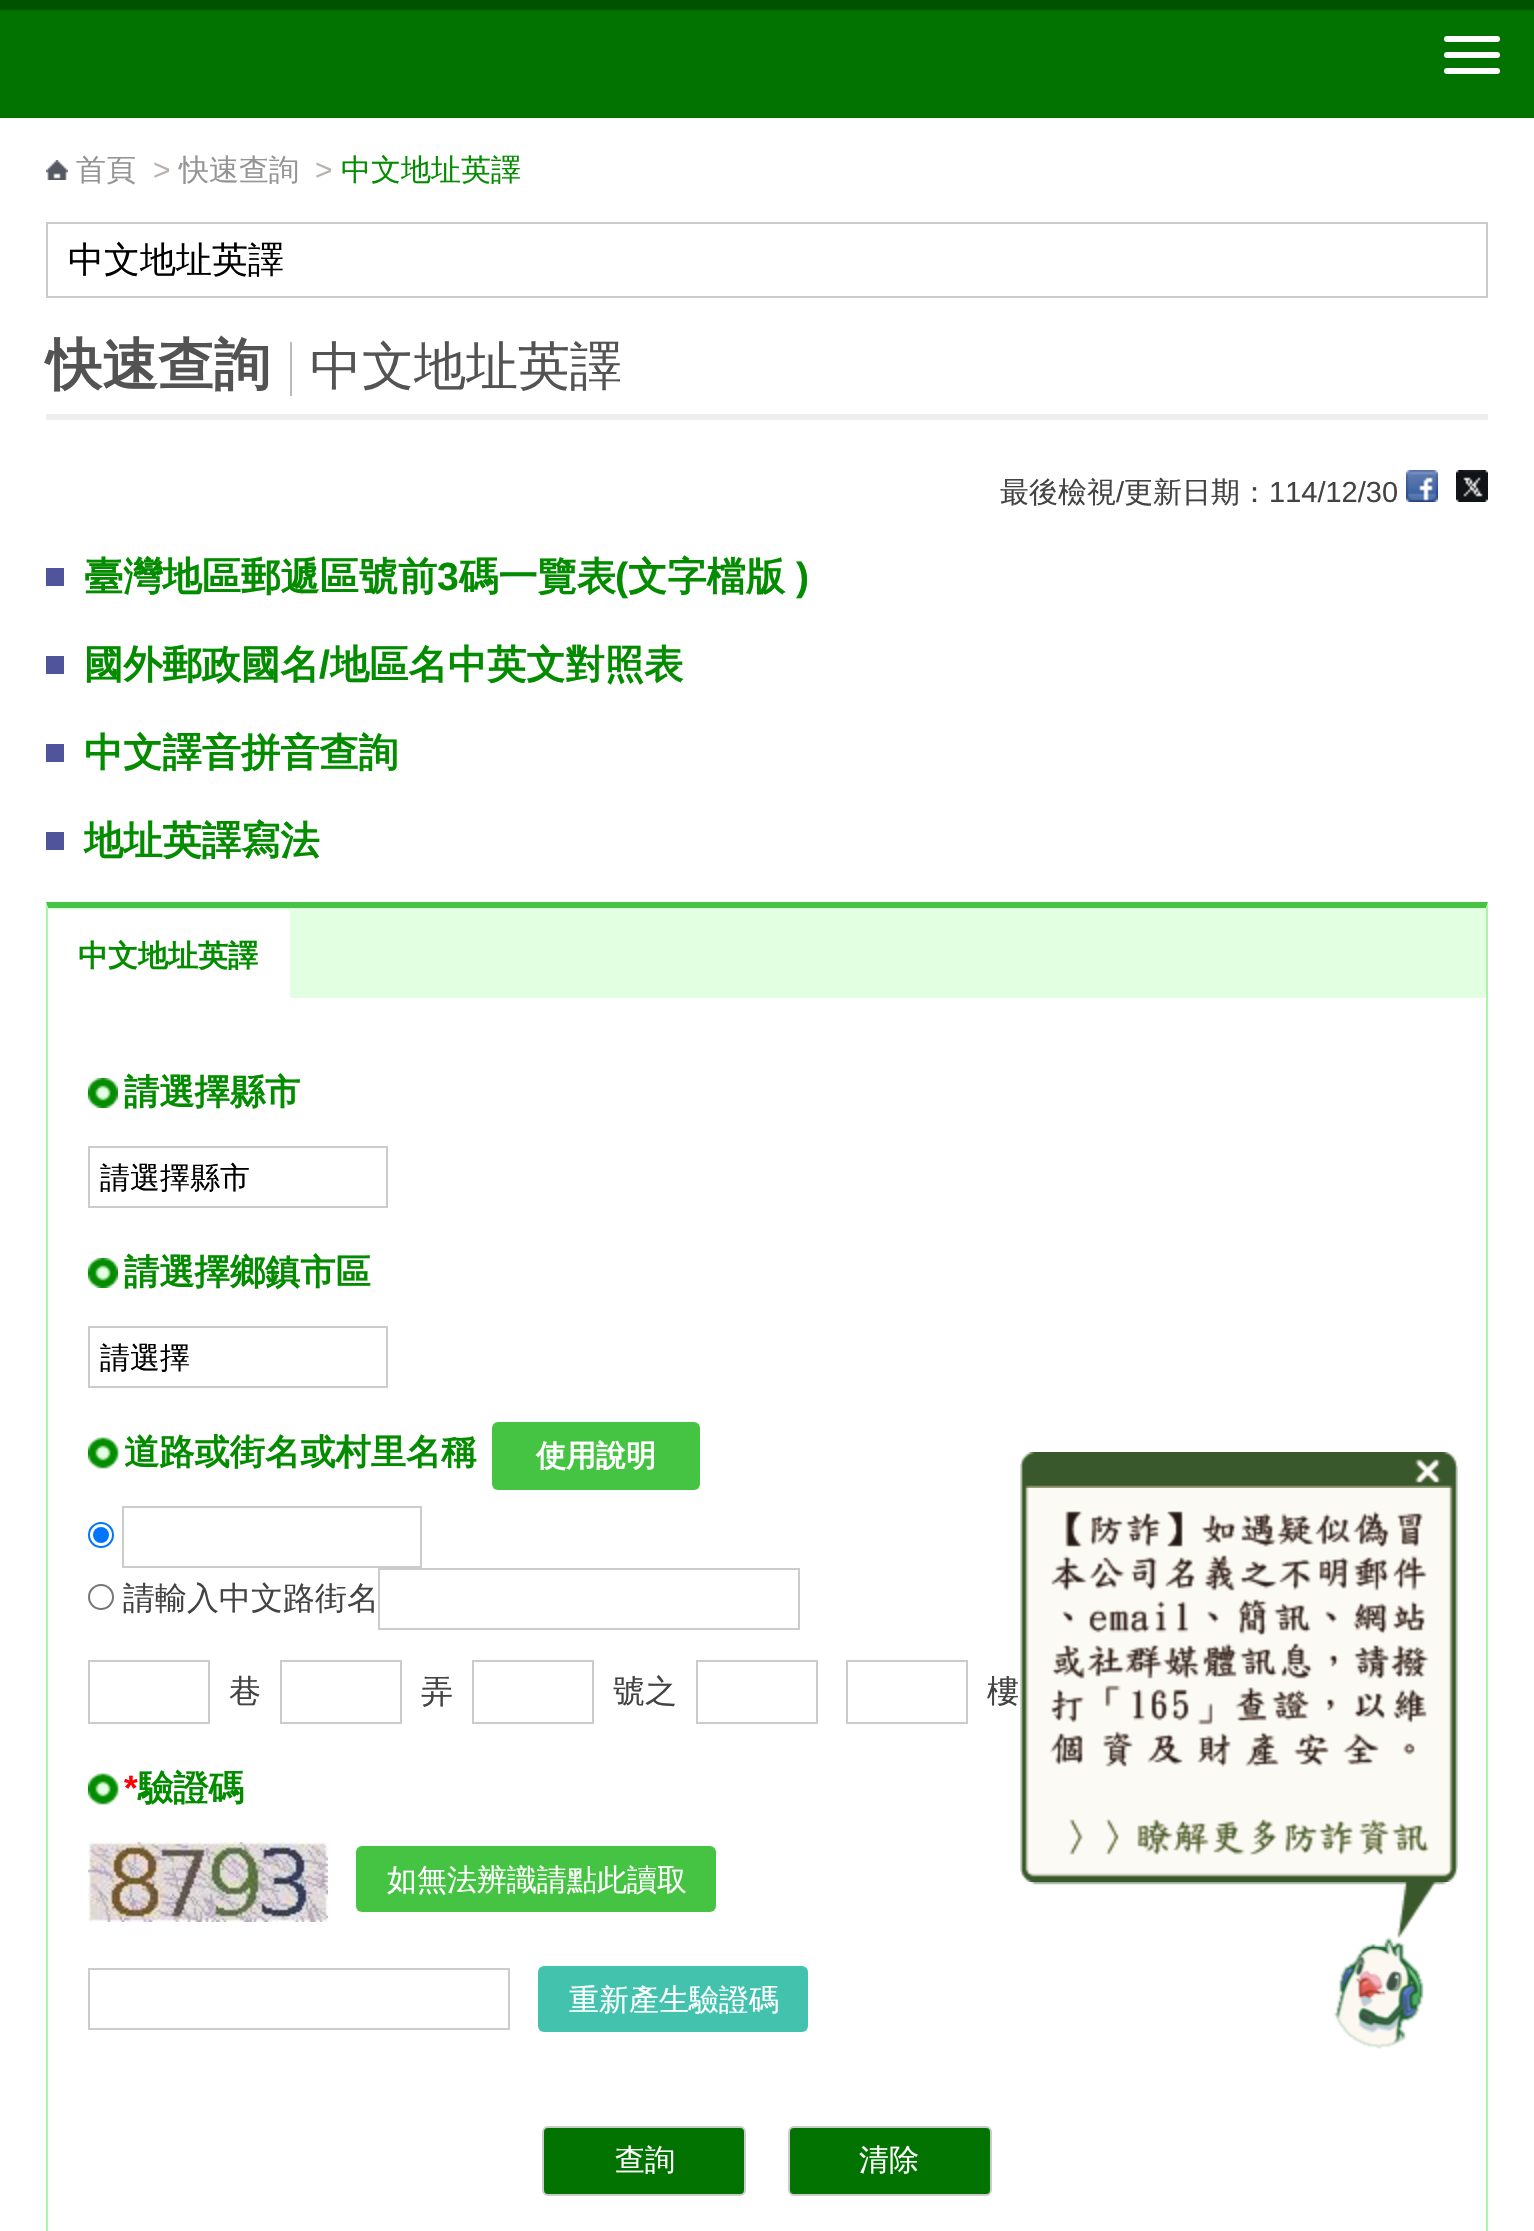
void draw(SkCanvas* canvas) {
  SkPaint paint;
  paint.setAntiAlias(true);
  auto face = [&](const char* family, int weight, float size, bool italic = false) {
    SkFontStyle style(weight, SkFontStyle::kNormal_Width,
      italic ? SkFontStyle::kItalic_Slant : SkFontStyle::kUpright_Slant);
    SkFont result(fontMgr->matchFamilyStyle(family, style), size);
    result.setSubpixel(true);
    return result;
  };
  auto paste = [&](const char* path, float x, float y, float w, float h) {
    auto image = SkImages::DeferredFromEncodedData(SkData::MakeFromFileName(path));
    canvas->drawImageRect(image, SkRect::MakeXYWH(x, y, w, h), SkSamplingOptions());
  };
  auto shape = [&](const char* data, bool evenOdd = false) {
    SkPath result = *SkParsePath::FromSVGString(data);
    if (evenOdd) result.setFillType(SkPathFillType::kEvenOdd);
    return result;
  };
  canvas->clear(0xffffffff);
  paste("img/1.png", 0, 0, 1534, 118);
  paint.setColor(0xffffffff);
  canvas->drawRoundRect(SkRect::MakeXYWH(1444, 36, 56, 6), 3, 3, paint);
  canvas->drawRoundRect(SkRect::MakeXYWH(1444, 52, 56, 6), 3, 3, paint);
  canvas->drawRoundRect(SkRect::MakeXYWH(1444, 68, 56, 6), 3, 3, paint);
  paste("img/2.png", 46, 160, 22, 20);
  paint.setStroke(true);
  paint.setStrokeWidth(2);
  paint.setColor(0xffcccccc);
  canvas->drawRect(SkRect::MakeXYWH(47, 223, 1440, 74), paint);
  paint.setStroke(false);
  paint.setColor(0xffeeeeee);
  canvas->drawRect(SkRect::MakeXYWH(46, 414, 1442, 6), paint);
  paint.setColor(0xffbababa);
  canvas->drawRect(SkRect::MakeXYWH(290, 342, 2, 54), paint);
  paste("img/3.png", 1406, 470, 32, 32);
  paste("img/4.png", 1456, 470, 32, 32);
  {
    const struct { float x, y, w, h; SkColor color; } items[] = {
      {46, 568, 18, 18, 0xff50549b},
      {46, 656, 18, 18, 0xff50549b},
      {46, 744, 18, 18, 0xff50549b},
      {46, 832, 18, 18, 0xff50549b},
      {46, 902, 1442, 96, 0xffe2ffe1},
    };
    for (auto [x, y, w, h, color] : items) {
      paint.setColor(color);
      canvas->drawRect(SkRect::MakeXYWH(x, y, w, h), paint);
    }
  }
  paint.setColor(0xff45c343);
  canvas->drawPath(shape("M46 902H1488L1486 908H48Z"), paint);
  paint.setColor(0xffadf4aa);
  canvas->drawPath(shape("M1488 902V998H1486V908Z"), paint);
  canvas->drawPath(shape("M46 998V902L48 908V998Z"), paint);
  {
    const struct { float x, y, w, h; SkColor color; } items[] = {
      {48, 910, 242, 88, 0xffffffff},
      {1486, 998, 2, 1233, 0xffadf4aa},
      {46, 998, 2, 1233, 0xffadf4aa},
    };
    for (auto [x, y, w, h, color] : items) {
      paint.setColor(color);
      canvas->drawRect(SkRect::MakeXYWH(x, y, w, h), paint);
    }
  }
  paste("img/5.png", 88, 1078, 30, 30);
  paint.setStroke(true);
  paint.setColor(0xffcccccc);
  canvas->drawRect(SkRect::MakeXYWH(89, 1147, 298, 60), paint);
  paste("img/5.png", 88, 1258, 30, 30);
  canvas->drawRect(SkRect::MakeXYWH(89, 1327, 298, 60), paint);
  paste("img/6.png", 88, 1437, 31, 32);
  paint.setStroke(false);
  paint.setColor(0xff45c343);
  canvas->drawRoundRect(SkRect::MakeXYWH(492, 1422, 208, 68), 6, 6, paint);
  paint.setStroke(true);
  paint.setColor(0xff0075ff);
  canvas->drawCircle(101, 1535, 12, paint);
  paint.setStroke(false);
  canvas->drawCircle(101, 1535, 8, paint);
  paint.setStroke(true);
  paint.setColor(0xffcccccc);
  canvas->drawRect(SkRect::MakeXYWH(123, 1507, 298, 60), paint);
  paint.setColor(0xff767676);
  canvas->drawCircle(101, 1597, 12, paint);
  paint.setColor(0xffcccccc);
  canvas->drawRect(SkRect::MakeXYWH(379, 1569, 420, 60), paint);
  canvas->drawRect(SkRect::MakeXYWH(89, 1661, 120, 62), paint);
  canvas->drawRect(SkRect::MakeXYWH(281, 1661, 120, 62), paint);
  canvas->drawRect(SkRect::MakeXYWH(473, 1661, 120, 62), paint);
  canvas->drawRect(SkRect::MakeXYWH(697, 1661, 120, 62), paint);
  canvas->drawRect(SkRect::MakeXYWH(847, 1661, 120, 62), paint);
  paste("img/6.png", 88, 1773, 31, 32);
  paste("img/7.png", 88, 1842, 240, 80);
  paint.setStroke(false);
  paint.setColor(0xff45c343);
  canvas->drawRoundRect(SkRect::MakeXYWH(356, 1846, 360, 66), 6, 6, paint);
  paint.setStroke(true);
  paint.setColor(0xffcccccc);
  canvas->drawRect(SkRect::MakeXYWH(89, 1969, 420, 60), paint);
  paint.setStroke(false);
  paint.setColor(0xff43c3ae);
  canvas->drawRoundRect(SkRect::MakeXYWH(538, 1966, 270, 66), 6, 6, paint);
  paint.setColor(0xff027300);
  canvas->drawRoundRect(SkRect::MakeXYWH(543, 2127, 202, 68), 5, 5, paint);
  paint.setStroke(true);
  paint.setColor(0xffcccccc);
  canvas->drawRoundRect(SkRect::MakeXYWH(543, 2127, 202, 68), 5, 5, paint);
  paint.setStroke(false);
  paint.setColor(0xff027300);
  canvas->drawRoundRect(SkRect::MakeXYWH(789, 2127, 202, 68), 5, 5, paint);
  paint.setStroke(true);
  paint.setColor(0xffcccccc);
  canvas->drawRoundRect(SkRect::MakeXYWH(789, 2127, 202, 68), 5, 5, paint);
  paste("img/8.png", 1020, 1452, 438, 36);
  paste("img/9.png", 1020, 1488, 438, 312);
  paste("img/10.png", 1020, 1800, 438, 82);
  paste("img/12.png", 1334, 1937, 90, 112);
  paste("img/11.png", 1030, 1882, 417, 56);
  auto f0 = face("WenQuanYi Zen Hei", 500, 30);
  paint.setStroke(false);
  paint.setColor(0xff959595);
  canvas->drawString("首頁", 76, 180, f0, paint);
  auto f1 = face("Liberation Sans", 400, 30);
  paint.setColor(0xffb8b2ae);
  canvas->drawString(">", 153, 180, f1, paint);
  paint.setColor(0xff959595);
  canvas->drawString("快速查詢", 179, 180, f0, paint);
  paint.setColor(0xffb8b2ae);
  canvas->drawString(">", 315, 180, f1, paint);
  paint.setColor(0xff038c00);
  canvas->drawString("中文地址英譯", 341, 180, f0, paint);
  auto f2 = face("WenQuanYi Zen Hei", 500, 36);
  paint.setColor(0xff000000);
  canvas->drawString("中文地址英譯", 68, 272, f2, paint);
  auto f3 = face("WenQuanYi Zen Hei", 700, 56);
  paint.setColor(0xff535353);
  canvas->drawString("快速查詢", 46, 384, f3, paint);
  auto f4 = face("WenQuanYi Zen Hei", 500, 52);
  canvas->drawString("中文地址英譯", 310, 384, f4, paint);
  auto f5 = face("WenQuanYi Zen Hei", 500, 29);
  paint.setColor(0xff434343);
  canvas->drawString("最後檢視", 1000, 502, f5, paint);
  auto f6 = face("Liberation Sans", 400, 29);
  canvas->drawString("/", 1116, 502, f6, paint);
  canvas->drawString("更新日期：", 1124, 502, f5, paint);
  canvas->drawString("114/12/30", 1269, 502, f6, paint);
  auto f7 = face("WenQuanYi Zen Hei", 700, 39.25f);
  paint.setColor(0xff038c00);
  canvas->drawString("臺灣地區郵遞區號前", 84, 590, f7, paint);
  auto f8 = face("Liberation Sans", 700, 39.25f);
  canvas->drawString("3", 437, 590, f8, paint);
  canvas->drawString("碼一覽表", 459, 590, f7, paint);
  canvas->drawString("(", 615, 590, f8, paint);
  canvas->drawString("文字檔版", 628, 590, f7, paint);
  canvas->drawString(")", 796, 590, f8, paint);
  canvas->drawString("國外郵政國名", 84, 678, f7, paint);
  canvas->drawString("/", 319, 678, f8, paint);
  {
    const struct { const char* s; float x, y; } items[] = {
      {"地區名中英文對照表", 330, 678},
      {"中文譯音拼音查詢", 84, 766},
      {"地址英譯寫法", 84, 854},
    };
    for (auto [s, x, y] : items) {
      canvas->drawString(s, x, y, f7, paint);
    }
  }
  auto f9 = face("WenQuanYi Zen Hei", 700, 30);
  canvas->drawString("中文地址英譯", 78, 966, f9, paint);
  auto f10 = face("WenQuanYi Zen Hei", 700, 35.25f);
  canvas->drawString("請選擇縣市", 124, 1104, f10, paint);
  paint.setColor(0xff000000);
  canvas->drawString("請選擇縣市", 100, 1188, f0, paint);
  paint.setColor(0xff038c00);
  canvas->drawString("請選擇鄉鎮市區", 124, 1284, f10, paint);
  paint.setColor(0xff000000);
  canvas->drawString("請選擇", 100, 1368, f0, paint);
  paint.setColor(0xff038c00);
  canvas->drawString("道路或街名或村里名稱", 124, 1464, f10, paint);
  paint.setColor(0xffffffff);
  canvas->drawString("使用說明", 536, 1466, f9, paint);
  auto f11 = face("WenQuanYi Zen Hei", 500, 32);
  paint.setColor(0xff434343);
  {
    const struct { const char* s; float x, y; } items[] = {
      {"請輸入中文路街名", 123, 1609},
      {"巷", 229, 1702},
      {"弄", 421, 1702},
      {"號之", 613, 1702},
      {"樓", 987, 1702},
    };
    for (auto [s, x, y] : items) {
      canvas->drawString(s, x, y, f11, paint);
    }
  }
  auto f12 = face("Liberation Sans", 700, 35.25f);
  paint.setColor(0xffff0000);
  canvas->drawString("*", 124, 1800, f12, paint);
  paint.setColor(0xff038c00);
  canvas->drawString("驗證碼", 138, 1800, f10, paint);
  paint.setColor(0xffffffff);
  {
    const struct { const char* s; float x, y; } items[] = {
      {"如無法辨識請點此讀取", 387, 1890},
      {"重新產生驗證碼", 569, 2010},
      {"查詢", 615, 2170},
      {"清除", 859, 2170},
    };
    for (auto [s, x, y] : items) {
      canvas->drawString(s, x, y, f0, paint);
    }
  }
}
